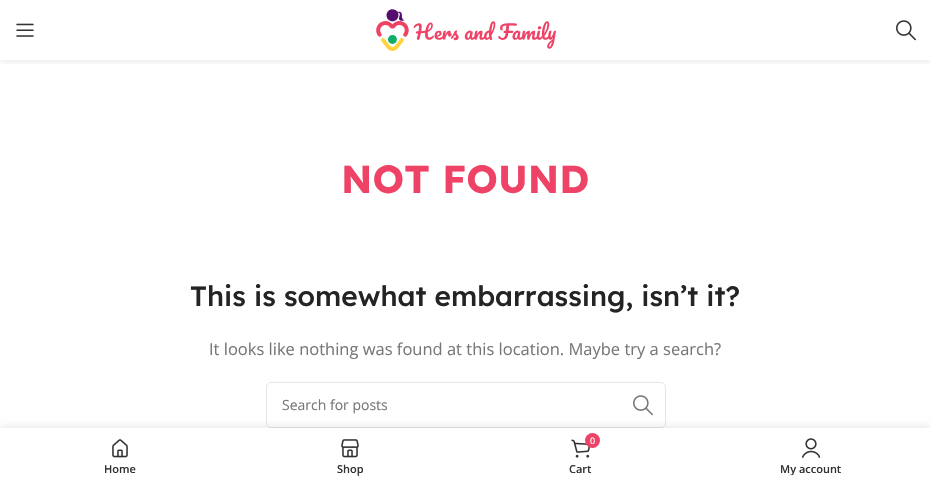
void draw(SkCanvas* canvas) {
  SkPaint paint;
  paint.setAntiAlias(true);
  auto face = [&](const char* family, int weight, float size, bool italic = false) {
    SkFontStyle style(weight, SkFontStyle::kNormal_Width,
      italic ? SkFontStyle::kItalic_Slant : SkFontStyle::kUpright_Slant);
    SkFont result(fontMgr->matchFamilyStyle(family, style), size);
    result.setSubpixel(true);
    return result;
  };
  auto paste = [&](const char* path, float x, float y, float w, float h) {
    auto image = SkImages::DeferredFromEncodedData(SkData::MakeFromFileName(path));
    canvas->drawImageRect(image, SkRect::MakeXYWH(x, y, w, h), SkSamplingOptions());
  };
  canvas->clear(0xffffffff);
  canvas->save();
  canvas->clipRect(SkRect::MakeXYWH(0, 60, 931, 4));
  paint.setColor(0x1a000000);
  paint.setMaskFilter(SkMaskFilter::MakeBlur(kNormal_SkBlurStyle, 4));
  canvas->drawRect(SkRect::MakeXYWH(0, 1, 931, 60), paint);
  paint.setMaskFilter(nullptr);
  canvas->restore();
  paste("img/1.png", 16, 23, 18, 14);
  paste("img/2.png", 376, 9, 180, 42);
  paste("img/3.png", 896, 20, 20, 21);
  paint.setStroke(true);
  paint.setStrokeWidth(1);
  paint.setColor(0xffe6e6e6);
  canvas->drawRoundRect(SkRect::MakeXYWH(266.5f, 382.5f, 399, 45), 4.5f, 4.5f, paint);
  paste("img/4.png", 633, 395, 20, 21);
  paint.setStroke(false);
  paint.setColor(0x1f000000);
  paint.setMaskFilter(SkMaskFilter::MakeBlur(kNormal_SkBlurStyle, 4.5f));
  canvas->drawRect(SkRect::MakeXYWH(0, 428, 931, 55), paint);
  paint.setMaskFilter(nullptr);
  paint.setColor(0xffffffff);
  canvas->drawRect(SkRect::MakeXYWH(0, 428, 931, 55), paint);
  paste("img/5.png", 112, 439, 16, 19);
  paste("img/6.png", 341, 439, 18, 19);
  paste("img/7.png", 571, 439, 19, 19);
  paint.setColor(0xffee4266);
  canvas->drawCircle(592.5f, 440.5f, 7.5f, paint);
  paste("img/8.png", 802, 438, 18, 20);
  auto f0 = face("Lexend Deca", 700, 39);
  canvas->drawString("NOT FOUND", 341, 193, f0, paint);
  auto f1 = face("Lexend Deca", 500, 28);
  paint.setColor(0xff242424);
  canvas->drawString("This is somewhat embarrassing, isn’t it?", 190, 306, f1, paint);
  auto f2 = face("Open Sans", 400, 16.5f);
  paint.setColor(0xff777777);
  canvas->drawString("It looks like nothing was found at this location. Maybe try a search?", 209, 355, f2, paint);
  auto f3 = face("Open Sans", 400, 14);
  canvas->drawString("Search for posts", 282, 410, f3, paint);
  auto f4 = face("Open Sans", 600, 11);
  paint.setColor(0xff333333);
  canvas->drawString("Home", 104, 473, f4, paint);
  canvas->drawString("Shop", 337, 473, f4, paint);
  auto f5 = face("Open Sans", 400, 9);
  paint.setColor(0xffffffff);
  canvas->drawString("0", 590, 444, f5, paint);
  paint.setColor(0xff333333);
  canvas->drawString("Cart", 569, 473, f4, paint);
  canvas->save();
  canvas->clipRect(SkRect::MakeXYWH(706, 462, 210, 13));
  canvas->drawString("My account", 780, 473, f4, paint);
  canvas->restore();
}
